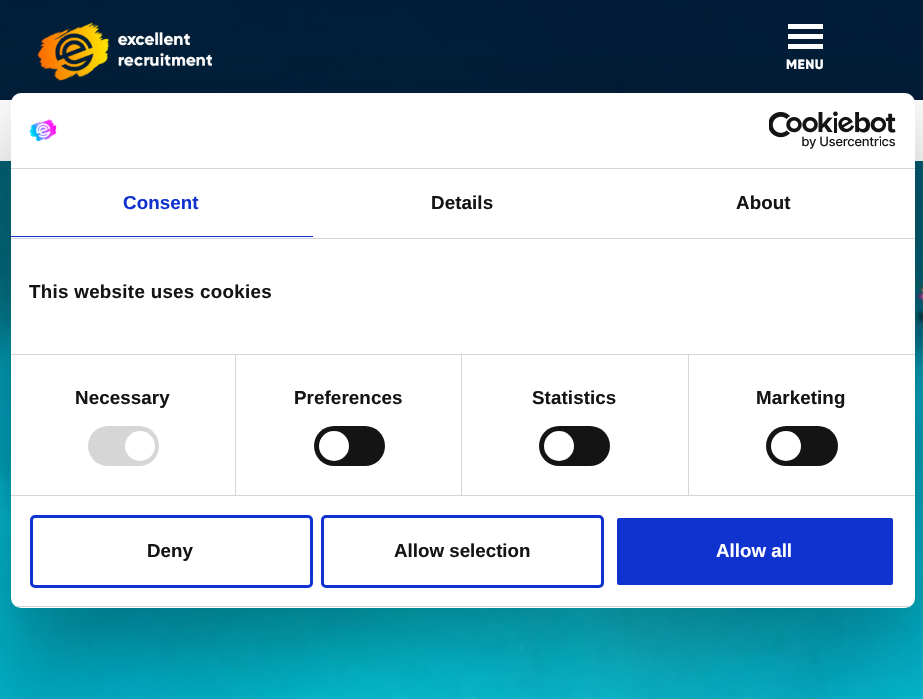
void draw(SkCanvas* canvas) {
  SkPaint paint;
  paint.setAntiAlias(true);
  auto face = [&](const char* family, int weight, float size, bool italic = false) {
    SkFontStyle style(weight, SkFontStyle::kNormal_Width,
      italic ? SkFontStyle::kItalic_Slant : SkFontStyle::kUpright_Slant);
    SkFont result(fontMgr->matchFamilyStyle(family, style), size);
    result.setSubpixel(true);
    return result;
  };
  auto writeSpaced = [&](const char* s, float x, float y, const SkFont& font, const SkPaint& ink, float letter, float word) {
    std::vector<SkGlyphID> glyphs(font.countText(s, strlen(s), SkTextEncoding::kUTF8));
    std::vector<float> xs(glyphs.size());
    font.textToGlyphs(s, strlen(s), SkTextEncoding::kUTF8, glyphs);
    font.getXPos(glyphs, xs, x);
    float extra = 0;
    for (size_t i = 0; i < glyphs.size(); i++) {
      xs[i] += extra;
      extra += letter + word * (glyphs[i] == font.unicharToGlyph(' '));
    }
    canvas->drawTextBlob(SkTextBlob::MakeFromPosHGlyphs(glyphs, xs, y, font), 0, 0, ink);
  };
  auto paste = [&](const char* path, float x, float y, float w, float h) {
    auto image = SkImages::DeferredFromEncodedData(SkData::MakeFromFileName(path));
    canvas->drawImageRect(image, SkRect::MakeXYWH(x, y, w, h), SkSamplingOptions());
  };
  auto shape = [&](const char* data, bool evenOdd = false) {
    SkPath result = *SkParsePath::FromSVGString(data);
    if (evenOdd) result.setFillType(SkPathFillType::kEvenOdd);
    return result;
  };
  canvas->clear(0xffffffff);
  paste("img/1.png", 0, 0, 923, 699);
  paint.setColor(0xffffffff);
  canvas->drawRect(SkRect::MakeXYWH(0, 100, 923, 61), paint);
  paint.setColor(0xcc010f2b);
  canvas->drawRect(SkRect::MakeXYWH(0, 0, 923, 100), paint);
  paste("img/2.png", 37, 22, 175, 59);
  {
    const struct { float x, y, w, h; SkColor color; } items[] = {
      {788, 44, 35, 5, 0xffffffff},
      {788, 24, 35, 5, 0xffffffff},
      {788, 34, 35, 5, 0xffffffff},
    };
    for (auto [x, y, w, h, color] : items) {
      paint.setColor(color);
      canvas->drawRect(SkRect::MakeXYWH(x, y, w, h), paint);
    }
  }
  paint.setColor(0x4d000000);
  paint.setMaskFilter(SkMaskFilter::MakeBlur(kNormal_SkBlurStyle, 42.5f));
  canvas->drawRoundRect(SkRect::MakeXYWH(11, 133, 904, 515), 10, 10, paint);
  paint.setMaskFilter(nullptr);
  paint.setColor(0xffffffff);
  canvas->drawRoundRect(SkRect::MakeXYWH(11, 93, 904, 515), 10, 10, paint);
  paint.setColor(0xffd6d6d6);
  canvas->drawRect(SkRect::MakeXYWH(11, 168, 904, 1), paint);
  paste("img/3.png", 29, 119, 28, 23);
  paste("img/4.png", 769, 111, 127, 38);
  {
    const struct { float x, y, w, h; SkColor color; } items[] = {
      {11, 238, 904, 1, 0xffd6d6d6},
      {11, 236, 302, 1, 0xff1032cf},
      {11, 354, 904, 1, 0xffd6d6d6},
      {11, 495, 904, 1, 0xffd6d6d6},
      {235, 355, 1, 140, 0xffd6d6d6},
    };
    for (auto [x, y, w, h, color] : items) {
      paint.setColor(color);
      canvas->drawRect(SkRect::MakeXYWH(x, y, w, h), paint);
    }
  }
  canvas->drawRoundRect(SkRect::MakeXYWH(88, 426, 71, 40), 20, 20, paint);
  paint.setColor(0xffffffff);
  canvas->drawCircle(140, 446, 15, paint);
  paint.setColor(0xffd6d6d6);
  canvas->drawRect(SkRect::MakeXYWH(461, 355, 1, 140), paint);
  paint.setColor(0xff141414);
  canvas->drawRoundRect(SkRect::MakeXYWH(314, 426, 71, 40), 20, 20, paint);
  paint.setColor(0xffffffff);
  canvas->drawCircle(334, 446, 15, paint);
  paint.setColor(0xffd6d6d6);
  canvas->drawRect(SkRect::MakeXYWH(688, 355, 1, 140), paint);
  paint.setColor(0xff141414);
  canvas->drawRoundRect(SkRect::MakeXYWH(539, 426, 71, 40), 20, 20, paint);
  paint.setColor(0xffffffff);
  canvas->drawCircle(559, 446, 15, paint);
  paint.setColor(0xff141414);
  canvas->drawRoundRect(SkRect::MakeXYWH(766, 426, 72, 40), 20, 20, paint);
  paint.setColor(0xffffffff);
  canvas->drawCircle(786, 446, 15, paint);
  canvas->save();
  canvas->clipPath(shape("M21 93H905C910.5 93 915 97.5 915 103V598C915 603.5 910.5 608 905 608H21C15.5 608 11 603.5 11 598V103C11 97.5 15.5 93 21 93Z"), true);
  paint.setColor(0xffd6d6d6);
  canvas->drawRect(SkRect::MakeXYWH(11, 606, 904, 1), paint);
  canvas->restore();
  paint.setStroke(true);
  paint.setStrokeWidth(3);
  paint.setColor(0xff1032cf);
  canvas->drawRoundRect(SkRect::MakeXYWH(31.5f, 516.5f, 280, 70), 3.5f, 3.5f, paint);
  canvas->drawRoundRect(SkRect::MakeXYWH(322.5f, 516.5f, 280, 70), 3.5f, 3.5f, paint);
  paint.setStroke(false);
  canvas->drawRoundRect(SkRect::MakeXYWH(615.5f, 516.5f, 279, 70), 3.5f, 3.5f, paint);
  paint.setStroke(true);
  paint.setColor(0xffffffff);
  canvas->drawRoundRect(SkRect::MakeXYWH(615.5f, 516.5f, 279, 70), 3.5f, 3.5f, paint);
  auto f0 = face("Gilroy", 800, 13.5f);
  paint.setStroke(false);
  writeSpaced("MENU", 786, 69, f0, paint, 0.5f, 0);
  auto f1 = face("Liberation Sans", 700, 18.75f);
  paint.setColor(0xff1032cf);
  writeSpaced("Consent", 123, 209, f1, paint, 0.1f, 0);
  paint.setColor(0xff141414);
  writeSpaced("Details", 431, 209, f1, paint, 0.1f, 0);
  writeSpaced("About", 736, 209, f1, paint, 0.1f, 0);
  writeSpaced("This website uses cookies", 29, 298, f1, paint, 0.3f, 0);
  {
    const struct { const char* s; float x, y; } items[] = {
      {"Necessary", 75, 404},
      {"Preferences", 294, 404},
      {"Statistics", 532, 404},
      {"Marketing", 756, 404},
    };
    for (auto [s, x, y] : items) {
      writeSpaced(s, x, y, f1, paint, 0.1f, 0);
    }
  }
  canvas->drawString("Deny", 147, 557, f1, paint);
  canvas->drawString("Allow selection", 394, 557, f1, paint);
  paint.setColor(0xffffffff);
  canvas->drawString("Allow all", 716, 557, f1, paint);
}
